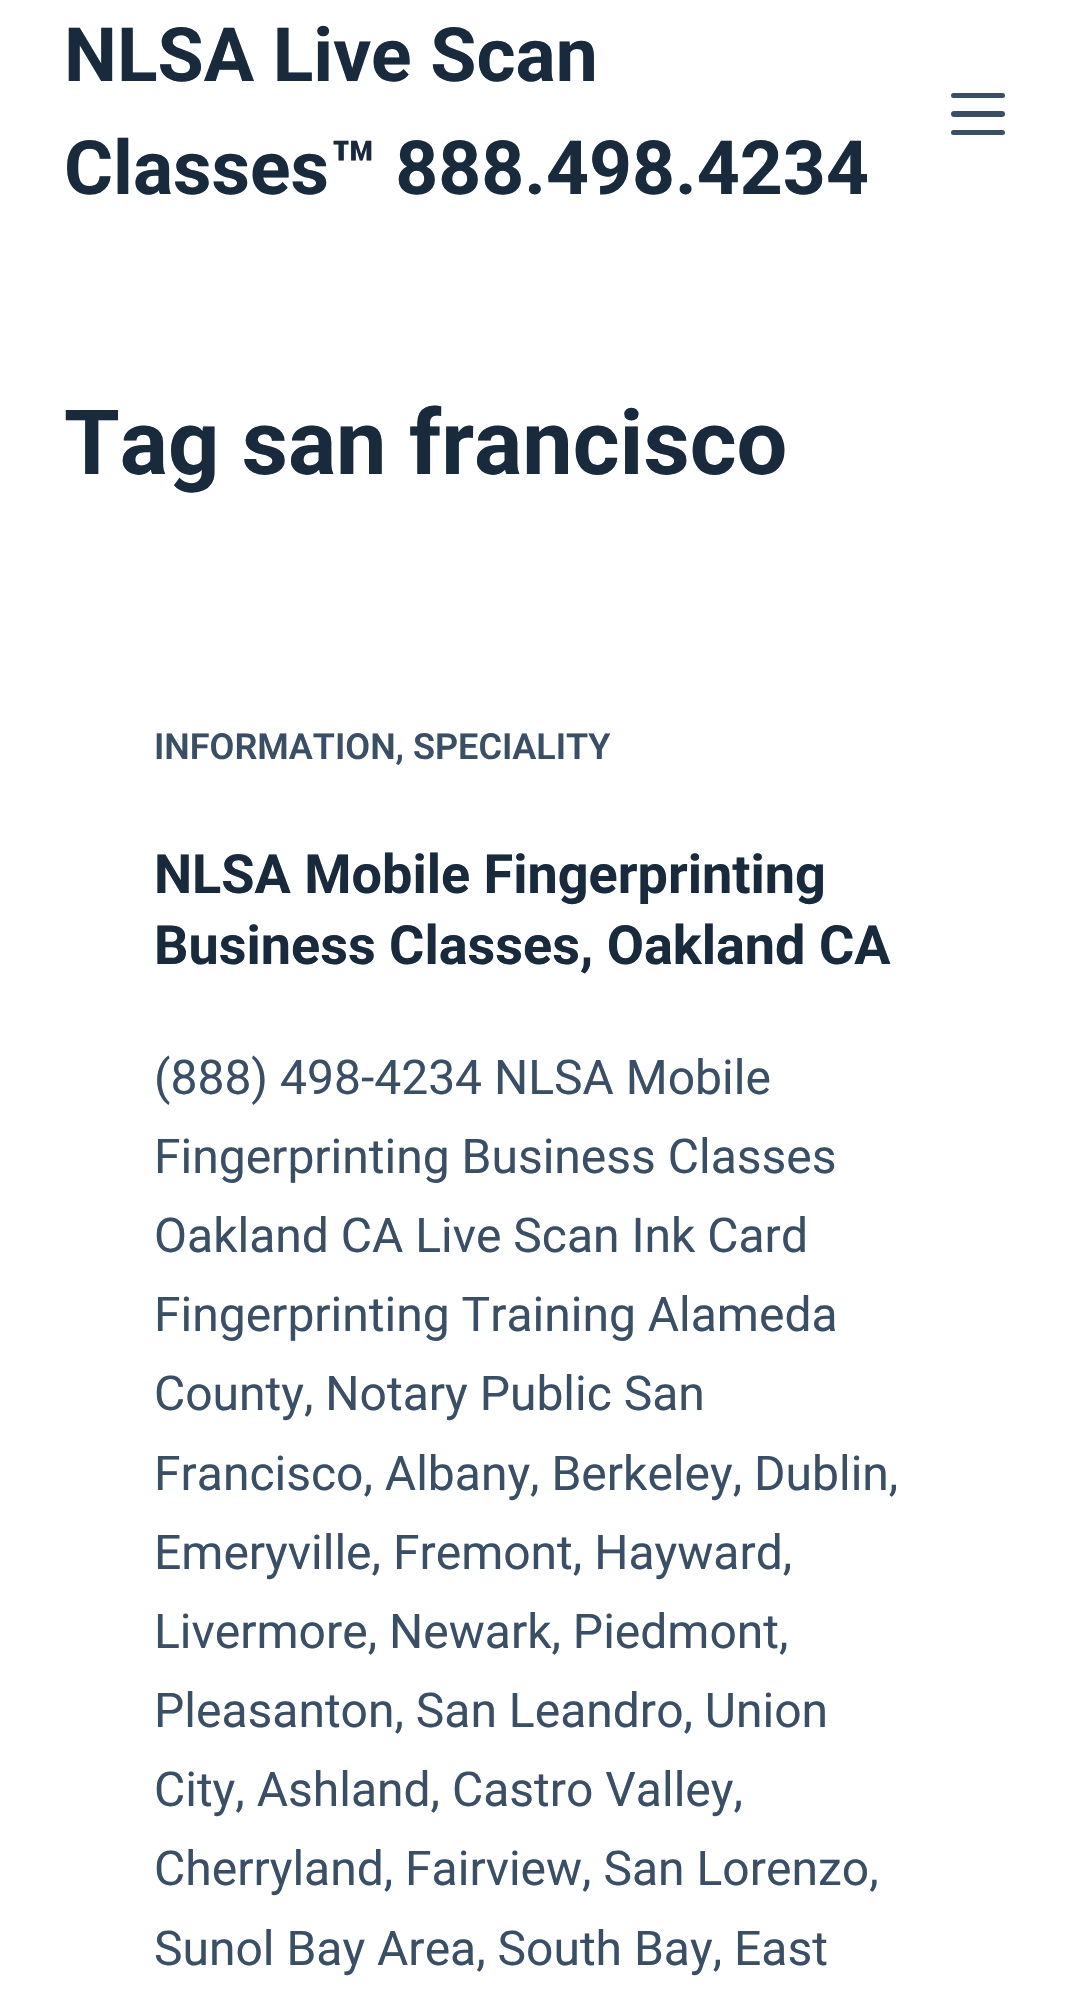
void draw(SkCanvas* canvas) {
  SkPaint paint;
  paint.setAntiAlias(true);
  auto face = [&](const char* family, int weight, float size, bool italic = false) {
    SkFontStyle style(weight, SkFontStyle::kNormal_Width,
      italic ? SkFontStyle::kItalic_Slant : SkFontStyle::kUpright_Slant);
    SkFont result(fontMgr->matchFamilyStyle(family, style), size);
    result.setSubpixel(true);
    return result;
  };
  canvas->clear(0xffffffff);
  paint.setColor(0xff3a4f66);
  canvas->drawRoundRect(SkRect::MakeXYWH(951, 93, 54, 5), 2.5f, 2.5f, paint);
  canvas->drawRoundRect(SkRect::MakeXYWH(951, 111, 54, 6), 3, 3, paint);
  canvas->drawRoundRect(SkRect::MakeXYWH(951, 130, 54, 5), 2.5f, 2.5f, paint);
  auto f0 = face("Roboto", 700, 75);
  paint.setColor(0xff192a3d);
  canvas->drawString("NLSA Live Scan", 64, 81, f0, paint);
  canvas->drawString("Classes™ 888.498.4234", 64, 194, f0, paint);
  auto f1 = face("Roboto", 700, 90);
  canvas->drawString("Tag san francisco", 64, 474, f1, paint);
  auto f2 = face("Roboto", 600, 36);
  paint.setColor(0xff3a4f66);
  canvas->drawString("INFORMATION, SPECIALITY", 154, 759, f2, paint);
  auto f3 = face("Roboto", 700, 54);
  paint.setColor(0xff192a3d);
  canvas->drawString("NLSA Mobile Fingerprinting", 154, 893, f3, paint);
  canvas->drawString("Business Classes, Oakland CA", 154, 964, f3, paint);
  auto f4 = face("Roboto", 400, 48);
  paint.setColor(0xff3a4f66);
  {
    const struct { const char* s; float x, y; } items[] = {
      {"(888) 498-4234 NLSA Mobile", 154, 1094},
      {"Fingerprinting Business Classes", 154, 1173},
      {"Oakland CA Live Scan Ink Card", 154, 1252},
      {"Fingerprinting Training Alameda", 154, 1331},
      {"County, Notary Public San", 154, 1410},
      {"Francisco, Albany, Berkeley, Dublin,", 154, 1490},
      {"Emeryville, Fremont, Hayward,", 154, 1569},
      {"Livermore, Newark, Piedmont,", 154, 1648},
      {"Pleasanton, San Leandro, Union", 154, 1727},
      {"City, Ashland, Castro Valley,", 154, 1806},
      {"Cherryland, Fairview, San Lorenzo,", 154, 1885},
      {"Sunol Bay Area, South Bay, East", 154, 1965},
    };
    for (auto [s, x, y] : items) {
      canvas->drawString(s, x, y, f4, paint);
    }
  }
}
